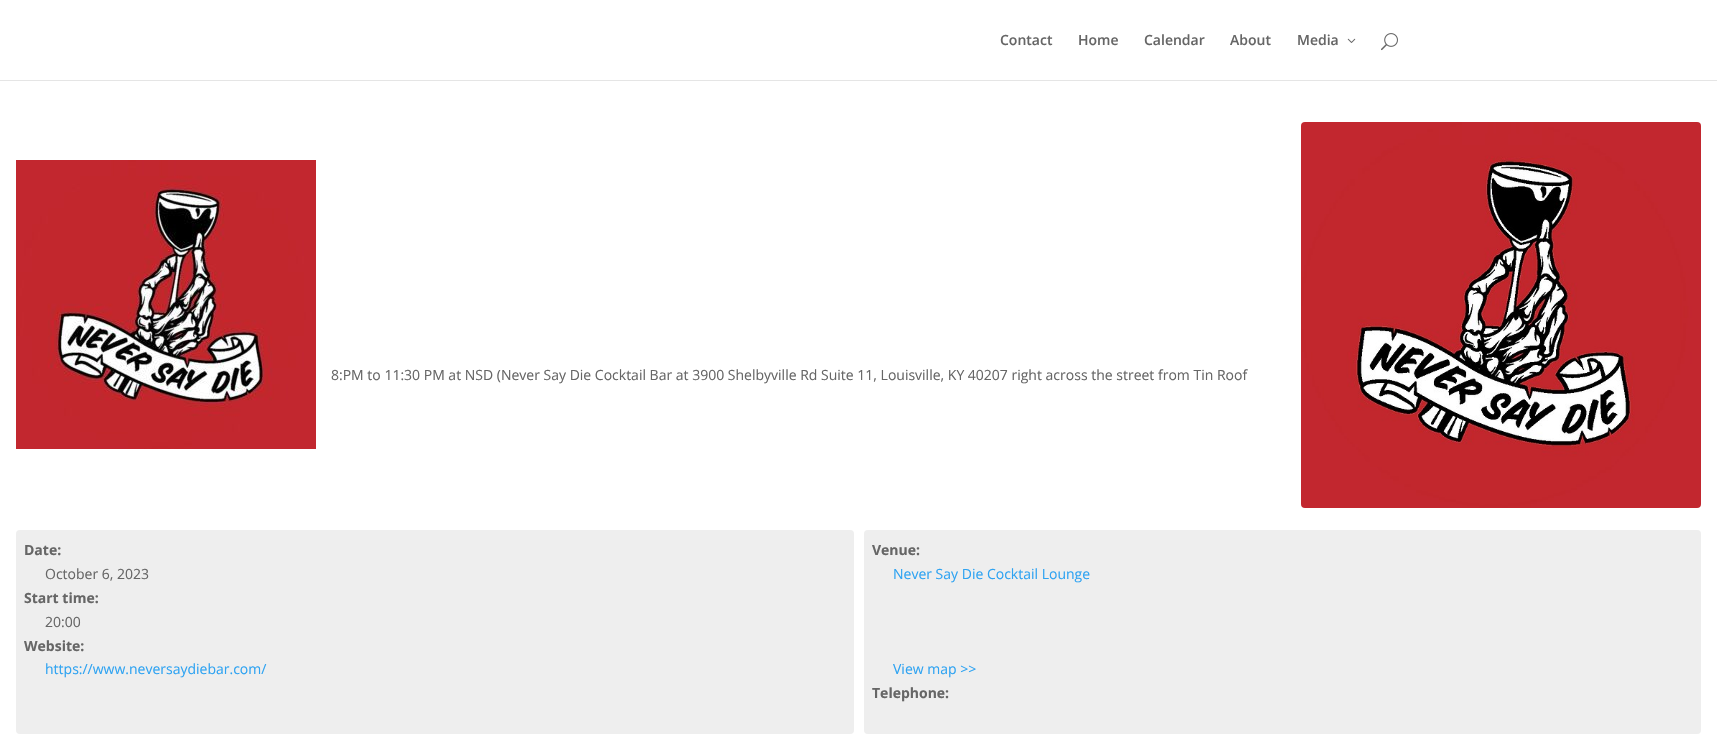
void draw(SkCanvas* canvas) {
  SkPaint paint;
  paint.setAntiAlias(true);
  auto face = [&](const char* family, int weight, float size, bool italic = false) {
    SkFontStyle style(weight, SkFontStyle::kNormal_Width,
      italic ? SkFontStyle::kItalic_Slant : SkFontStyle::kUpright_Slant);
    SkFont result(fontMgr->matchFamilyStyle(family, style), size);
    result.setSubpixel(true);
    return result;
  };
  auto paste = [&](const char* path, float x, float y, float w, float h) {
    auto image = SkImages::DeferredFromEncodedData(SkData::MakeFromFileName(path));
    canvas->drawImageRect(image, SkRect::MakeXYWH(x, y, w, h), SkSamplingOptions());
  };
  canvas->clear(0xffffffff);
  paint.setColor(0x1a000000);
  canvas->drawRect(SkRect::MakeXYWH(0, 80, 1717, 1), paint);
  paste("img/1.png", 1347, 38, 9, 5);
  paste("img/2.png", 1381, 33, 17, 18);
  paste("img/3.png", 16, 160, 300, 289);
  paste("img/4.png", 1301, 122, 400, 386);
  paint.setColor(0xffeeeeee);
  canvas->drawRoundRect(SkRect::MakeXYWH(16, 530, 838, 204), 4, 4, paint);
  canvas->drawRoundRect(SkRect::MakeXYWH(864, 530, 837, 204), 4, 4, paint);
  auto f0 = face("Open Sans", 600, 14);
  paint.setColor(0xff666666);
  {
    const struct { const char* s; float x, y; } items[] = {
      {"Contact", 1000, 45},
      {"Home", 1078, 45},
      {"Calendar", 1144, 45},
      {"About", 1230, 45},
      {"Media", 1297, 45},
    };
    for (auto [s, x, y] : items) {
      canvas->drawString(s, x, y, f0, paint);
    }
  }
  auto f1 = face("Open Sans", 400, 14);
  canvas->drawString("8:PM to 11:30 PM at NSD (Never Say Die Cocktail Bar at 3900 Shelbyville Rd Suite 11, Louisville, KY 40207 right across the street from Tin Roof", 331, 380, f1, paint);
  auto f2 = face("Open Sans", 700, 14);
  canvas->drawString("Date:", 24, 555, f2, paint);
  canvas->drawString("October 6, 2023", 45, 579, f1, paint);
  canvas->drawString("Start time:", 24, 603, f2, paint);
  canvas->drawString("20:00", 45, 627, f1, paint);
  canvas->drawString("Website:", 24, 651, f2, paint);
  paint.setColor(0xff2ea3f2);
  canvas->drawString("https://www.neversaydiebar.com/", 45, 674, f1, paint);
  paint.setColor(0xff666666);
  canvas->drawString("Venue:", 872, 555, f2, paint);
  paint.setColor(0xff2ea3f2);
  canvas->drawString("Never Say Die Cocktail Lounge", 893, 579, f1, paint);
  canvas->drawString("View map >>", 893, 674, f1, paint);
  paint.setColor(0xff666666);
  canvas->drawString("Telephone:", 872, 698, f2, paint);
}
